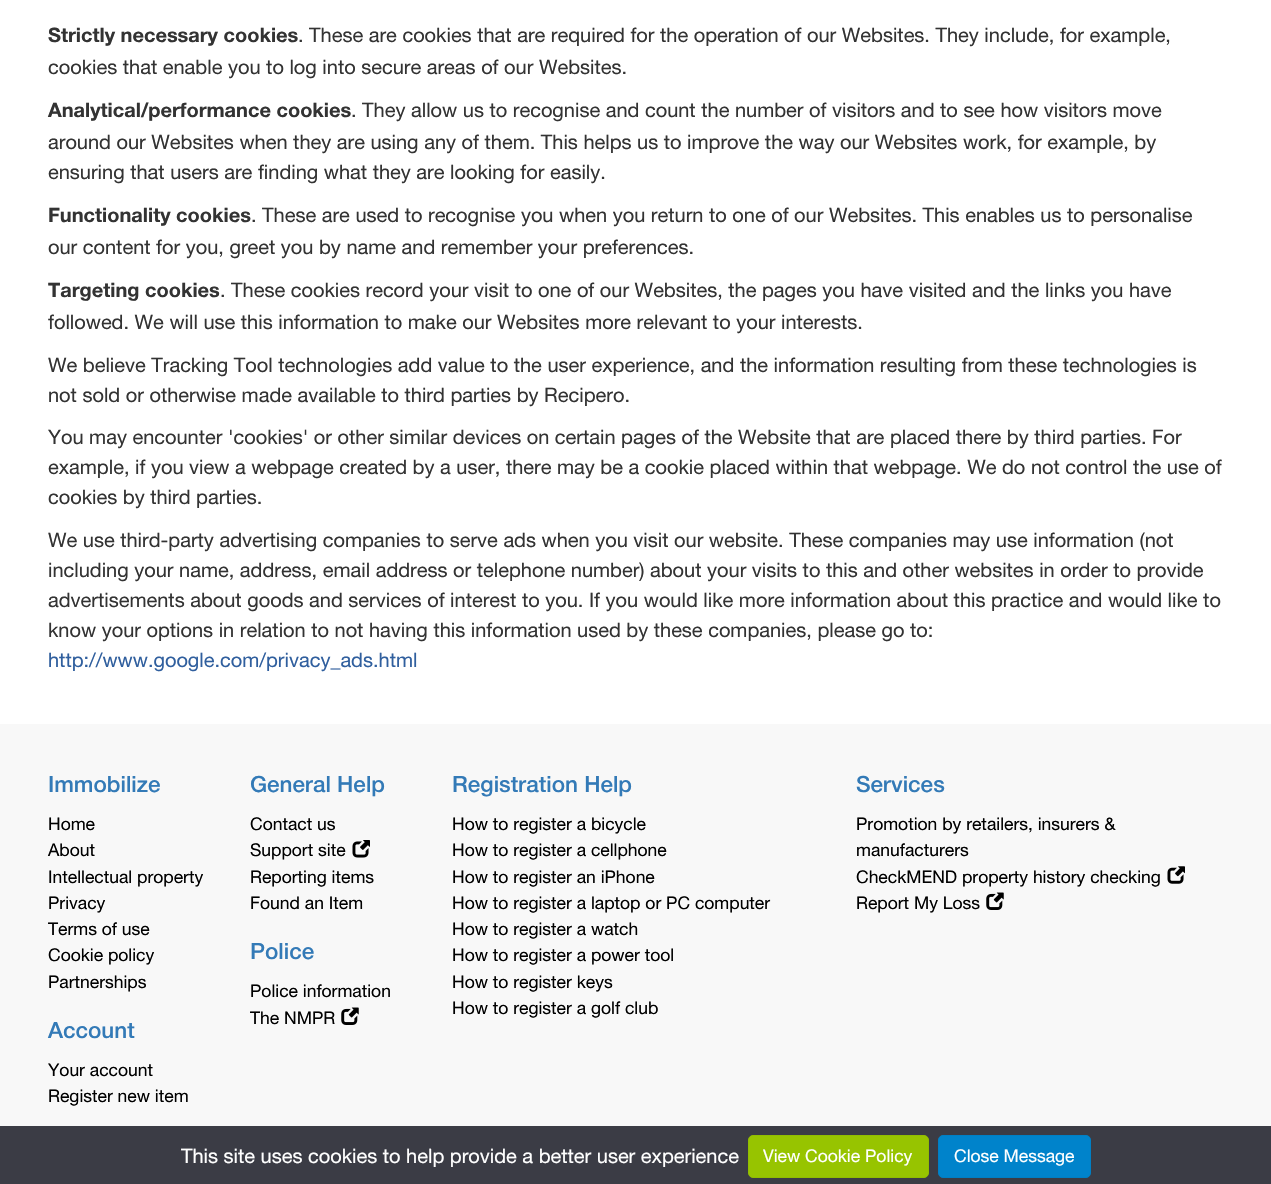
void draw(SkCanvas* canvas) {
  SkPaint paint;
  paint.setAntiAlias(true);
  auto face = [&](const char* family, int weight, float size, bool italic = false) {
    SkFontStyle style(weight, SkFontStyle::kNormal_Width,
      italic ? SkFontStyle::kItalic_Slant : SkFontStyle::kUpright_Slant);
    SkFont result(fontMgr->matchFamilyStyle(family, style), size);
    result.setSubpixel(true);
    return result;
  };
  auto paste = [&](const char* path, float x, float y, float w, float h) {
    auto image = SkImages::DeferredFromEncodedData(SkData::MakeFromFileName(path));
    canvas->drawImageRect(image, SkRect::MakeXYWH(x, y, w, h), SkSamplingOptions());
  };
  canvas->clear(0xffffffff);
  paint.setColor(0xfff8f8f8);
  canvas->drawRect(SkRect::MakeXYWH(0, 724, 1271, 402), paint);
  paste("img/1.png", 352, 840, 18, 18);
  paste("img/2.png", 341, 1007, 18, 18);
  paste("img/3.png", 1167, 866, 18, 18);
  paste("img/2.png", 986, 892, 18, 18);
  paint.setColor(0xff3b3c45);
  canvas->drawRect(SkRect::MakeXYWH(0, 1126, 1271, 58), paint);
  paint.setColor(0xff97c400);
  canvas->drawRoundRect(SkRect::MakeXYWH(748.5f, 1135.5f, 180, 42), 4.5f, 4.5f, paint);
  paint.setStroke(true);
  paint.setStrokeWidth(1);
  paint.setColor(0xff91bd00);
  canvas->drawRoundRect(SkRect::MakeXYWH(748.5f, 1135.5f, 180, 42), 4.5f, 4.5f, paint);
  paint.setStroke(false);
  paint.setColor(0xff0083cb);
  canvas->drawRoundRect(SkRect::MakeXYWH(938.5f, 1135.5f, 152, 42), 4.5f, 4.5f, paint);
  paint.setStroke(true);
  paint.setColor(0xff007fc4);
  canvas->drawRoundRect(SkRect::MakeXYWH(938.5f, 1135.5f, 152, 42), 4.5f, 4.5f, paint);
  auto f0 = face("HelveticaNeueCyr", 700, 20);
  paint.setStroke(false);
  paint.setColor(0xff333333);
  canvas->drawString("Strictly necessary cookies", 48, 42, f0, paint);
  auto f1 = face("Helvetica Neue", 400, 20);
  canvas->drawString(". These are cookies that are required for the operation of our Websites. They include, for example,", 298, 42, f1, paint);
  canvas->drawString("cookies that enable you to log into secure areas of our Websites.", 48, 74, f1, paint);
  canvas->drawString("Analytical/performance cookies", 48, 117, f0, paint);
  {
    const struct { const char* s; float x, y; } items[] = {
      {". They allow us to recognise and count the number of visitors and to see how visitors move", 351, 117},
      {"around our Websites when they are using any of them. This helps us to improve the way our Websites work, for example, by", 48, 149},
      {"ensuring that users are finding what they are looking for easily.", 48, 179},
    };
    for (auto [s, x, y] : items) {
      canvas->drawString(s, x, y, f1, paint);
    }
  }
  canvas->drawString("Functionality cookies", 48, 222, f0, paint);
  canvas->drawString(". These are used to recognise you when you return to one of our Websites. This enables us to personalise", 251, 222, f1, paint);
  canvas->drawString("our content for you, greet you by name and remember your preferences.", 48, 254, f1, paint);
  canvas->drawString("Targeting cookies", 48, 297, f0, paint);
  {
    const struct { const char* s; float x, y; } items[] = {
      {". These cookies record your visit to one of our Websites, the pages you have visited and the links you have", 220, 297},
      {"followed. We will use this information to make our Websites more relevant to your interests.", 48, 329},
      {"We believe Tracking Tool technologies add value to the user experience, and the information resulting from these technologies is", 48, 372},
      {"not sold or otherwise made available to third parties by Recipero.", 48, 402},
      {"You may encounter 'cookies' or other similar devices on certain pages of the Website that are placed there by third parties. For", 48, 444},
      {"example, if you view a webpage created by a user, there may be a cookie placed within that webpage. We do not control the use of", 48, 474},
      {"cookies by third parties.", 48, 504},
      {"We use third-party advertising companies to serve ads when you visit our website. These companies may use information (not", 48, 547},
      {"including your name, address, email address or telephone number) about your visits to this and other websites in order to provide", 48, 577},
      {"advertisements about goods and services of interest to you. If you would like more information about this practice and would like to", 48, 607},
      {"know your options in relation to not having this information used by these companies, please go to:", 48, 637},
    };
    for (auto [s, x, y] : items) {
      canvas->drawString(s, x, y, f1, paint);
    }
  }
  paint.setColor(0xff305f9e);
  canvas->drawString("http://www.google.com/privacy_ads.html", 48, 667, f1, paint);
  auto f2 = face("HelveticaNeueCyr", 500, 22.5f);
  paint.setColor(0xff337ab7);
  canvas->drawString("Immobilize", 48, 792, f2, paint);
  auto f3 = face("Helvetica Neue", 400, 17.5f);
  paint.setColor(0xff000000);
  {
    const struct { const char* s; float x, y; } items[] = {
      {"Home", 48, 830},
      {"About", 48, 856},
      {"Intellectual property", 48, 883},
      {"Privacy", 48, 909},
      {"Terms of use", 48, 935},
      {"Cookie policy", 48, 961},
      {"Partnerships", 48, 988},
    };
    for (auto [s, x, y] : items) {
      canvas->drawString(s, x, y, f3, paint);
    }
  }
  paint.setColor(0xff337ab7);
  canvas->drawString("Account", 48, 1038, f2, paint);
  paint.setColor(0xff000000);
  canvas->drawString("Your account", 48, 1076, f3, paint);
  canvas->drawString("Register new item", 48, 1102, f3, paint);
  paint.setColor(0xff337ab7);
  canvas->drawString("General Help", 250, 792, f2, paint);
  paint.setColor(0xff000000);
  {
    const struct { const char* s; float x, y; } items[] = {
      {"Contact us", 250, 830},
      {"Support site", 250, 856},
      {"Reporting items", 250, 883},
      {"Found an Item", 250, 909},
    };
    for (auto [s, x, y] : items) {
      canvas->drawString(s, x, y, f3, paint);
    }
  }
  paint.setColor(0xff337ab7);
  canvas->drawString("Police", 250, 959, f2, paint);
  paint.setColor(0xff000000);
  canvas->drawString("Police information", 250, 997, f3, paint);
  canvas->drawString("The NMPR", 250, 1024, f3, paint);
  paint.setColor(0xff337ab7);
  canvas->drawString("Registration Help", 452, 792, f2, paint);
  paint.setColor(0xff000000);
  {
    const struct { const char* s; float x, y; } items[] = {
      {"How to register a bicycle", 452, 830},
      {"How to register a cellphone", 452, 856},
      {"How to register an iPhone", 452, 883},
      {"How to register a laptop or PC computer", 452, 909},
      {"How to register a watch", 452, 935},
      {"How to register a power tool", 452, 961},
      {"How to register keys", 452, 988},
      {"How to register a golf club", 452, 1014},
    };
    for (auto [s, x, y] : items) {
      canvas->drawString(s, x, y, f3, paint);
    }
  }
  paint.setColor(0xff337ab7);
  canvas->drawString("Services", 856, 792, f2, paint);
  paint.setColor(0xff000000);
  {
    const struct { const char* s; float x, y; } items[] = {
      {"Promotion by retailers, insurers &", 856, 830},
      {"manufacturers", 856, 856},
      {"CheckMEND property history checking", 856, 883},
      {"Report My Loss", 856, 909},
    };
    for (auto [s, x, y] : items) {
      canvas->drawString(s, x, y, f3, paint);
    }
  }
  paint.setColor(0xffffffff);
  canvas->drawString("This site uses cookies to help provide a better user experience", 181, 1163, f1, paint);
  canvas->drawString("View Cookie Policy", 763, 1162, f3, paint);
  canvas->drawString("Close Message", 954, 1162, f3, paint);
}
